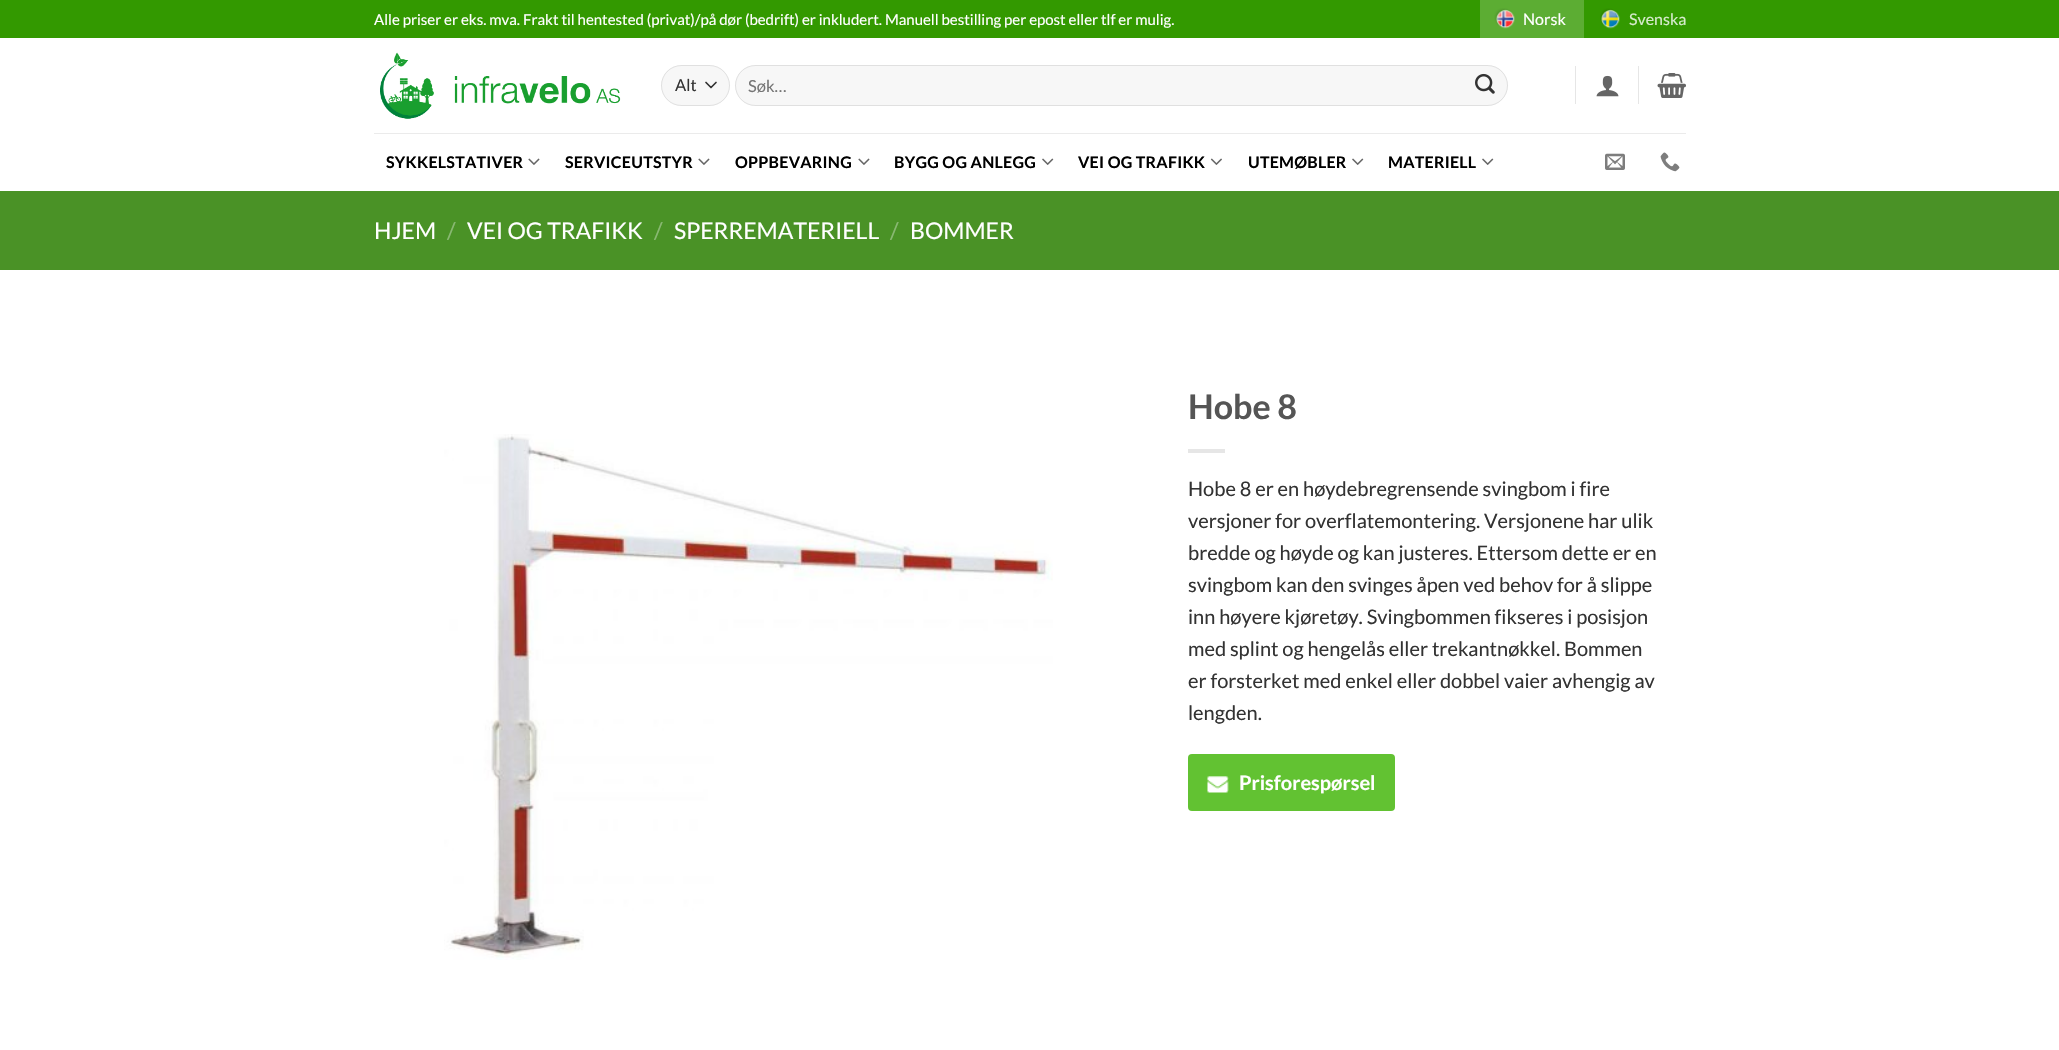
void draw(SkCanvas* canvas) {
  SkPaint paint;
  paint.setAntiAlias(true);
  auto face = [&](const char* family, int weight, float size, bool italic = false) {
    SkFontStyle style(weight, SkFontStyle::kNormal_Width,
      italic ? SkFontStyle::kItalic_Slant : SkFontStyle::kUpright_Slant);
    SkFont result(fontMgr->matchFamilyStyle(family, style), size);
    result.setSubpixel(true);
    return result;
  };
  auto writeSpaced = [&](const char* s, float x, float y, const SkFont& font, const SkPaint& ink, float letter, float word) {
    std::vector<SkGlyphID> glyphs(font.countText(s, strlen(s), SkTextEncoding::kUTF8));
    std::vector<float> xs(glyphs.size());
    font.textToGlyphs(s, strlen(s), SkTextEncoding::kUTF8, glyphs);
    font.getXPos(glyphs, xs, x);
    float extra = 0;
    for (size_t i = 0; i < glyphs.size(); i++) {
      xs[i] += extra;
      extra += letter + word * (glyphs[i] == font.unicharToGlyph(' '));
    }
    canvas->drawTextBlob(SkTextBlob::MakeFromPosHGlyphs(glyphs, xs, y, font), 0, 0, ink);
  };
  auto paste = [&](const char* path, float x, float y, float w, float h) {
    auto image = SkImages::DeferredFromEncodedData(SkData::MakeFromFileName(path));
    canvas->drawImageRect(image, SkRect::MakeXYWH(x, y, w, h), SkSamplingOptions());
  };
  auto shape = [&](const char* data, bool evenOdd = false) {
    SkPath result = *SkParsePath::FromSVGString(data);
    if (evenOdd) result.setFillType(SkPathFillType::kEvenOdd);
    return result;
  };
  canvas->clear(0xffffffff);
  paint.setColor(0xff339900);
  canvas->drawRect(SkRect::MakeXYWH(0, 0, 2059, 38), paint);
  paint.setColor(0xff5cad33);
  canvas->drawRect(SkRect::MakeXYWH(1480, 0, 104, 38), paint);
  paste("img/1.png", 1494, 8, 21, 21);
  paste("img/2.png", 1600, 8, 20, 21);
  paste("img/3.png", 380, 52, 241, 67);
  paint.setColor(0xfff7f7f7);
  canvas->drawRoundRect(SkRect::MakeXYWH(661, 65, 69, 41), 20.5f, 20.5f, paint);
  paint.setStroke(true);
  paint.setStrokeWidth(1.7f);
  paint.setStrokeCap(SkPaint::kRound_Cap);
  paint.setStrokeJoin(SkPaint::kRound_Join);
  paint.setColor(0xff333333);
  canvas->drawPath(shape("M706 82.5L711 87.5L716 82.5"), paint);
  paint.setStrokeWidth(1);
  paint.setStrokeCap(SkPaint::kButt_Cap);
  paint.setStrokeJoin(SkPaint::kMiter_Join);
  paint.setColor(0x17000000);
  canvas->drawRoundRect(SkRect::MakeXYWH(661.5f, 65.5f, 68, 40), 20, 20, paint);
  paint.setStroke(false);
  paint.setColor(0xfff7f7f7);
  canvas->drawRoundRect(SkRect::MakeXYWH(735, 65, 773, 41), 20.5f, 20.5f, paint);
  paint.setStroke(true);
  paint.setColor(0x17000000);
  canvas->drawRoundRect(SkRect::MakeXYWH(735.5f, 65.5f, 772, 40), 20, 20, paint);
  paste("img/4.png", 1475, 73, 20, 21);
  paint.setStroke(false);
  paint.setColor(0xffe6e6e6);
  canvas->drawRect(SkRect::MakeXYWH(1575, 66, 1, 38), paint);
  paste("img/5.png", 1596, 75, 23, 22);
  canvas->drawRect(SkRect::MakeXYWH(1638, 66, 1, 38), paint);
  paste("img/6.png", 1657, 73, 29, 25);
  paint.setColor(0xffebebeb);
  canvas->drawRect(SkRect::MakeXYWH(374, 133, 1312, 1), paint);
  paste("img/7.png", 528, 158, 12, 7);
  paste("img/7.png", 698, 158, 12, 7);
  paste("img/7.png", 858, 158, 12, 7);
  paste("img/8.png", 1042, 158, 12, 7);
  paste("img/9.png", 1210, 158, 12, 7);
  paste("img/8.png", 1352, 158, 12, 7);
  paste("img/8.png", 1482, 158, 12, 7);
  paste("img/10.png", 1605, 153, 20, 17);
  paste("img/11.png", 1660, 152, 20, 20);
  paint.setColor(0xff4a9226);
  canvas->drawRect(SkRect::MakeXYWH(0, 191, 2059, 79), paint);
  paste("img/12.png", 444, 434, 609, 526);
  paint.setColor(0xffe6e6e6);
  canvas->drawRect(SkRect::MakeXYWH(1188, 449, 37, 4), paint);
  paint.setColor(0xff62c232);
  canvas->drawRoundRect(SkRect::MakeXYWH(1188, 754, 207, 57), 4, 4, paint);
  paste("img/13.png", 1207, 776, 22, 17);
  auto f0 = face("Lato", 400, 15);
  paint.setColor(0xffffffff);
  canvas->drawString("Alle priser er eks. mva. Frakt til hentested (privat)/på dør (bedrift) er inkludert. Manuell bestilling per epost eller tlf er mulig.", 374, 25, f0, paint);
  auto f1 = face("Lato", 400, 16);
  canvas->drawString("Norsk", 1523, 25, f1, paint);
  paint.setColor(0xffd6ebcc);
  canvas->drawString("Svenska", 1629, 25, f1, paint);
  auto f2 = face("Lato", 400, 16.5f);
  paint.setColor(0xff333333);
  canvas->drawString("Alt", 675, 91, f2, paint);
  paint.setColor(0xff757575);
  canvas->drawString("Søk…", 748, 92, f2, paint);
  auto f3 = face("Lato", 700, 16);
  paint.setColor(0xff000000);
  {
    const struct { const char* s; float x, y; } items[] = {
      {"SYKKELSTATIVER", 386, 168},
      {"SERVICEUTSTYR", 565, 168},
      {"OPPBEVARING", 735, 168},
      {"BYGG OG ANLEGG", 894, 168},
      {"VEI OG TRAFIKK", 1078, 168},
      {"UTEMØBLER", 1248, 168},
      {"MATERIELL", 1388, 168},
    };
    for (auto [s, x, y] : items) {
      writeSpaced(s, x, y, f3, paint, 0.25f, 0);
    }
  }
  auto f4 = face("Lato", 400, 23);
  paint.setColor(0xffffffff);
  canvas->drawString("HJEM", 374, 239, f4, paint);
  paint.setColor(0xff89b872);
  canvas->drawString("/", 447, 239, f4, paint);
  paint.setColor(0xffffffff);
  canvas->drawString("VEI OG TRAFIKK", 467, 239, f4, paint);
  paint.setColor(0xff89b872);
  canvas->drawString("/", 654, 239, f4, paint);
  paint.setColor(0xffffffff);
  canvas->drawString("SPERREMATERIELL", 674, 239, f4, paint);
  paint.setColor(0xff89b872);
  canvas->drawString("/", 890, 239, f4, paint);
  paint.setColor(0xffffffff);
  canvas->drawString("BOMMER", 910, 239, f4, paint);
  auto f5 = face("Lato", 700, 34);
  paint.setColor(0xff555555);
  canvas->drawString("Hobe 8", 1188, 419, f5, paint);
  auto f6 = face("Lato", 400, 20);
  paint.setColor(0xff333333);
  {
    const struct { const char* s; float x, y; } items[] = {
      {"Hobe 8 er en høydebregrensende svingbom i fire", 1188, 496},
      {"versjoner for overflatemontering. Versjonene har ulik", 1188, 528},
      {"bredde og høyde og kan justeres. Ettersom dette er en", 1188, 560},
      {"svingbom kan den svinges åpen ved behov for å slippe", 1188, 592},
      {"inn høyere kjøretøy. Svingbommen fikseres i posisjon", 1188, 624},
      {"med splint og hengelås eller trekantnøkkel. Bommen", 1188, 656},
      {"er forsterket med enkel eller dobbel vaier avhengig av", 1188, 688},
      {"lengden.", 1188, 720},
    };
    for (auto [s, x, y] : items) {
      canvas->drawString(s, x, y, f6, paint);
    }
  }
  auto f7 = face("Lato", 700, 20);
  paint.setColor(0xffffffff);
  canvas->drawString("Prisforespørsel", 1239, 790, f7, paint);
}
